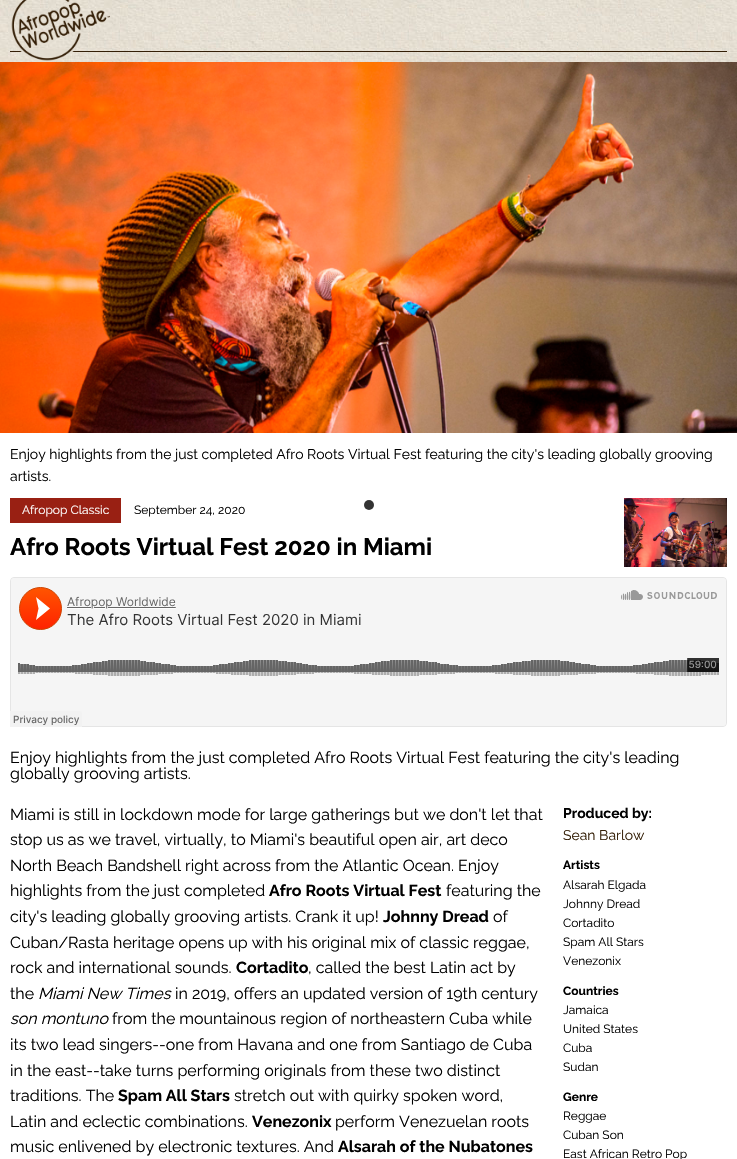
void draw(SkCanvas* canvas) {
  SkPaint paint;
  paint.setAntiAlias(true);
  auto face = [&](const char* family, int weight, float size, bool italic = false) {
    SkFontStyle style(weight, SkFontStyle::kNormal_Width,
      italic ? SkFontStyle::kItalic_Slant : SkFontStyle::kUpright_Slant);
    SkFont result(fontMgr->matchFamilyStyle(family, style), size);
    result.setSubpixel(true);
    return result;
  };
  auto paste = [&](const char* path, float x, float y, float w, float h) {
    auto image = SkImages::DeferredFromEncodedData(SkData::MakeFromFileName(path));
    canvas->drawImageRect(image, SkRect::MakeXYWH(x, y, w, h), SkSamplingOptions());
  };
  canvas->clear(0xffffffff);
  paste("img/1.png", 0, 0, 737, 62);
  paint.setColor(0xff341f07);
  canvas->drawRect(SkRect::MakeXYWH(10, 51, 717, 1), paint);
  paste("img/2.png", 10, 0, 100, 62);
  paste("img/3.png", 0, 62, 737, 371);
  paint.setColor(0xff333333);
  canvas->drawCircle(369, 505, 5, paint);
  paint.setColor(0xff992013);
  canvas->drawRect(SkRect::MakeXYWH(10, 498, 111, 25), paint);
  paste("img/4.png", 624, 498, 103, 69);
  paste("img/5.png", 10, 577, 717, 150);
  auto f0 = face("Raleway", 400, 14);
  paint.setColor(0xff000000);
  canvas->drawString("Enjoy highlights from the just completed Afro Roots Virtual Fest featuring the city's leading globally grooving", 10, 459, f0, paint);
  canvas->drawString("artists.", 10, 481, f0, paint);
  auto f1 = face("Raleway", 400, 12);
  paint.setColor(0xffffffff);
  canvas->drawString("Afropop Classic", 22, 514, f1, paint);
  paint.setColor(0xff000000);
  canvas->drawString("September 24, 2020", 134, 514, f1, paint);
  auto f2 = face("Raleway", 700, 24);
  canvas->drawString("Afro Roots Virtual Fest 2020 in Miami", 10, 555, f2, paint);
  auto f3 = face("Raleway", 400, 16);
  {
    const struct { const char* s; float x, y; } items[] = {
      {"Enjoy highlights from the just completed Afro Roots Virtual Fest featuring the city's leading", 10, 763},
      {"globally grooving artists.", 10, 779},
      {"Miami is still in lockdown mode for large gatherings but we don't let that", 10, 820},
      {"stop us as we travel, virtually, to Miami's beautiful open air, art deco", 10, 845},
      {"North Beach Bandshell right across from the Atlantic Ocean. Enjoy", 10, 871},
      {"highlights from the just completed", 10, 896},
    };
    for (auto [s, x, y] : items) {
      canvas->drawString(s, x, y, f3, paint);
    }
  }
  auto f4 = face("Raleway", 700, 16);
  canvas->drawString("Afro Roots Virtual Fest", 269, 896, f4, paint);
  canvas->drawString("featuring the", 446, 896, f3, paint);
  canvas->drawString("city's leading globally grooving artists. Crank it up!", 10, 922, f3, paint);
  canvas->drawString("Johnny Dread", 383, 922, f4, paint);
  {
    const struct { const char* s; float x, y; } items[] = {
      {"of", 493, 922},
      {"Cuban/Rasta heritage opens up with his original mix of classic reggae,", 10, 948},
      {"rock and international sounds.", 10, 973},
    };
    for (auto [s, x, y] : items) {
      canvas->drawString(s, x, y, f3, paint);
    }
  }
  canvas->drawString("Cortadito", 236, 973, f4, paint);
  canvas->drawString(", called the best Latin act by", 308, 973, f3, paint);
  canvas->drawString("the", 10, 999, f3, paint);
  auto f5 = face("Raleway", 400, 16, true);
  canvas->drawString("Miami New Times", 38, 999, f5, paint);
  canvas->drawString("in 2019, offers an updated version of 19th century", 175, 999, f3, paint);
  canvas->drawString("son montuno", 10, 1024, f5, paint);
  {
    const struct { const char* s; float x, y; } items[] = {
      {"from the mountainous region of northeastern Cuba while", 112, 1024},
      {"its two lead singers--one from Havana and one from Santiago de Cuba", 10, 1050},
      {"in the east--take turns performing originals from these two distinct", 10, 1076},
      {"traditions. The", 10, 1101},
    };
    for (auto [s, x, y] : items) {
      canvas->drawString(s, x, y, f3, paint);
    }
  }
  canvas->drawString("Spam All Stars", 118, 1101, f4, paint);
  canvas->drawString("stretch out with quirky spoken word,", 234, 1101, f3, paint);
  canvas->drawString("Latin and eclectic combinations.", 10, 1127, f3, paint);
  canvas->drawString("Venezonix", 252, 1127, f4, paint);
  canvas->drawString("perform Venezuelan roots", 335, 1127, f3, paint);
  canvas->drawString("music enlivened by electronic textures. And", 10, 1152, f3, paint);
  canvas->drawString("Alsarah of the Nubatones", 338, 1152, f4, paint);
  auto f6 = face("Raleway", 700, 14);
  canvas->drawString("Produced by:", 563, 818, f6, paint);
  paint.setColor(0xff341f07);
  canvas->drawString("Sean Barlow", 563, 840, f0, paint);
  auto f7 = face("Raleway", 700, 12);
  paint.setColor(0xff000000);
  canvas->drawString("Artists", 563, 869, f7, paint);
  {
    const struct { const char* s; float x, y; } items[] = {
      {"Alsarah Elgada", 563, 889},
      {"Johnny Dread", 563, 908},
      {"Cortadito", 563, 927},
      {"Spam All Stars", 563, 946},
      {"Venezonix", 563, 965},
    };
    for (auto [s, x, y] : items) {
      canvas->drawString(s, x, y, f1, paint);
    }
  }
  canvas->drawString("Countries", 563, 995, f7, paint);
  {
    const struct { const char* s; float x, y; } items[] = {
      {"Jamaica", 563, 1014},
      {"United States", 563, 1033},
      {"Cuba", 563, 1052},
      {"Sudan", 563, 1071},
    };
    for (auto [s, x, y] : items) {
      canvas->drawString(s, x, y, f1, paint);
    }
  }
  canvas->drawString("Genre", 563, 1101, f7, paint);
  {
    const struct { const char* s; float x, y; } items[] = {
      {"Reggae", 563, 1120},
      {"Cuban Son", 563, 1139},
      {"East African Retro Pop", 563, 1158},
    };
    for (auto [s, x, y] : items) {
      canvas->drawString(s, x, y, f1, paint);
    }
  }
}
